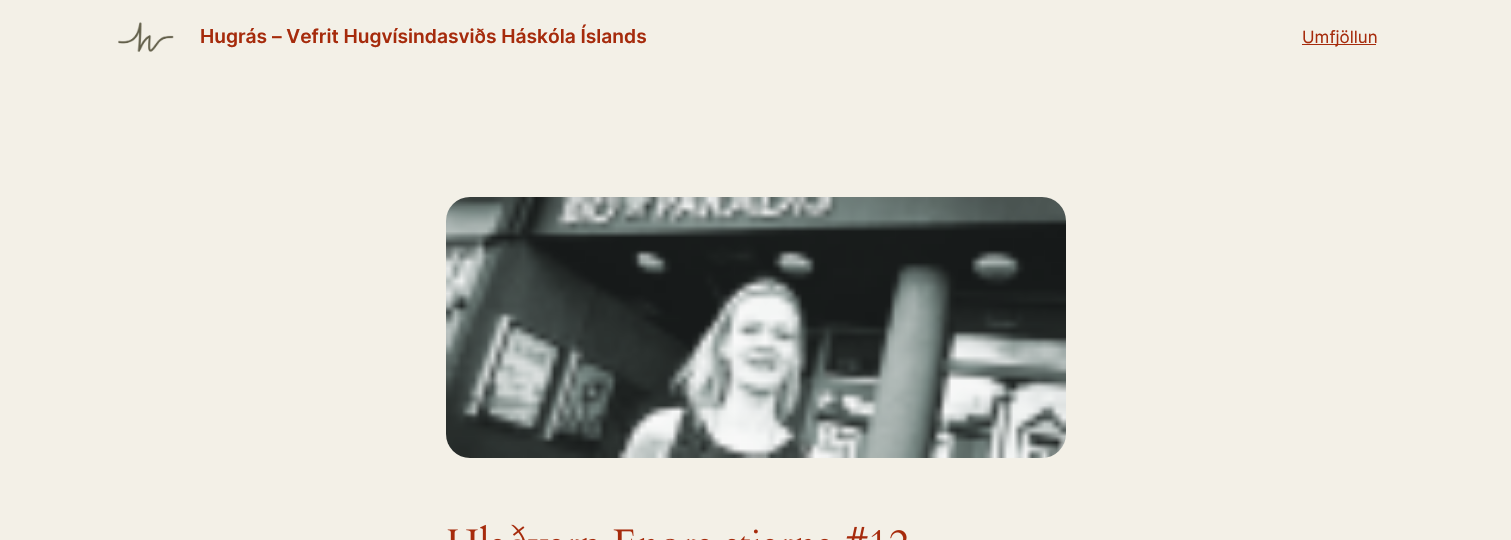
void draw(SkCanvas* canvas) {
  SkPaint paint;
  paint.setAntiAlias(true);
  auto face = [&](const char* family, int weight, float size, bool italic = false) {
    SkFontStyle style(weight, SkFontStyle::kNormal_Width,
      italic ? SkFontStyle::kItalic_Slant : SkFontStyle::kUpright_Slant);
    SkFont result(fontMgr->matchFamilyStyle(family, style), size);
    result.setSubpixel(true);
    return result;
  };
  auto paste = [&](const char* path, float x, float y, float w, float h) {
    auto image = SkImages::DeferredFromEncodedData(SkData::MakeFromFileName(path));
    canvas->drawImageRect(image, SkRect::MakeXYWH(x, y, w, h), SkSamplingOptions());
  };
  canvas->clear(0xfff3f0e7);
  paste("img/1.png", 118, 22, 56, 30);
  paint.setColor(0xffa62b0c);
  canvas->drawRect(SkRect::MakeXYWH(1302, 44, 74, 1), paint);
  paste("img/2.png", 446, 197, 620, 261);
  paste("img/3.png", 447, 524, 460, 16);
  auto f0 = face("Inter", 600, 19.2f);
  canvas->drawString("Hugrás – Vefrit Hugvísindasviðs Háskóla Íslands", 200, 43, f0, paint);
  auto f1 = face("Inter", 400, 17);
  canvas->drawString("Umfjöllun", 1302, 43, f1, paint);
}
